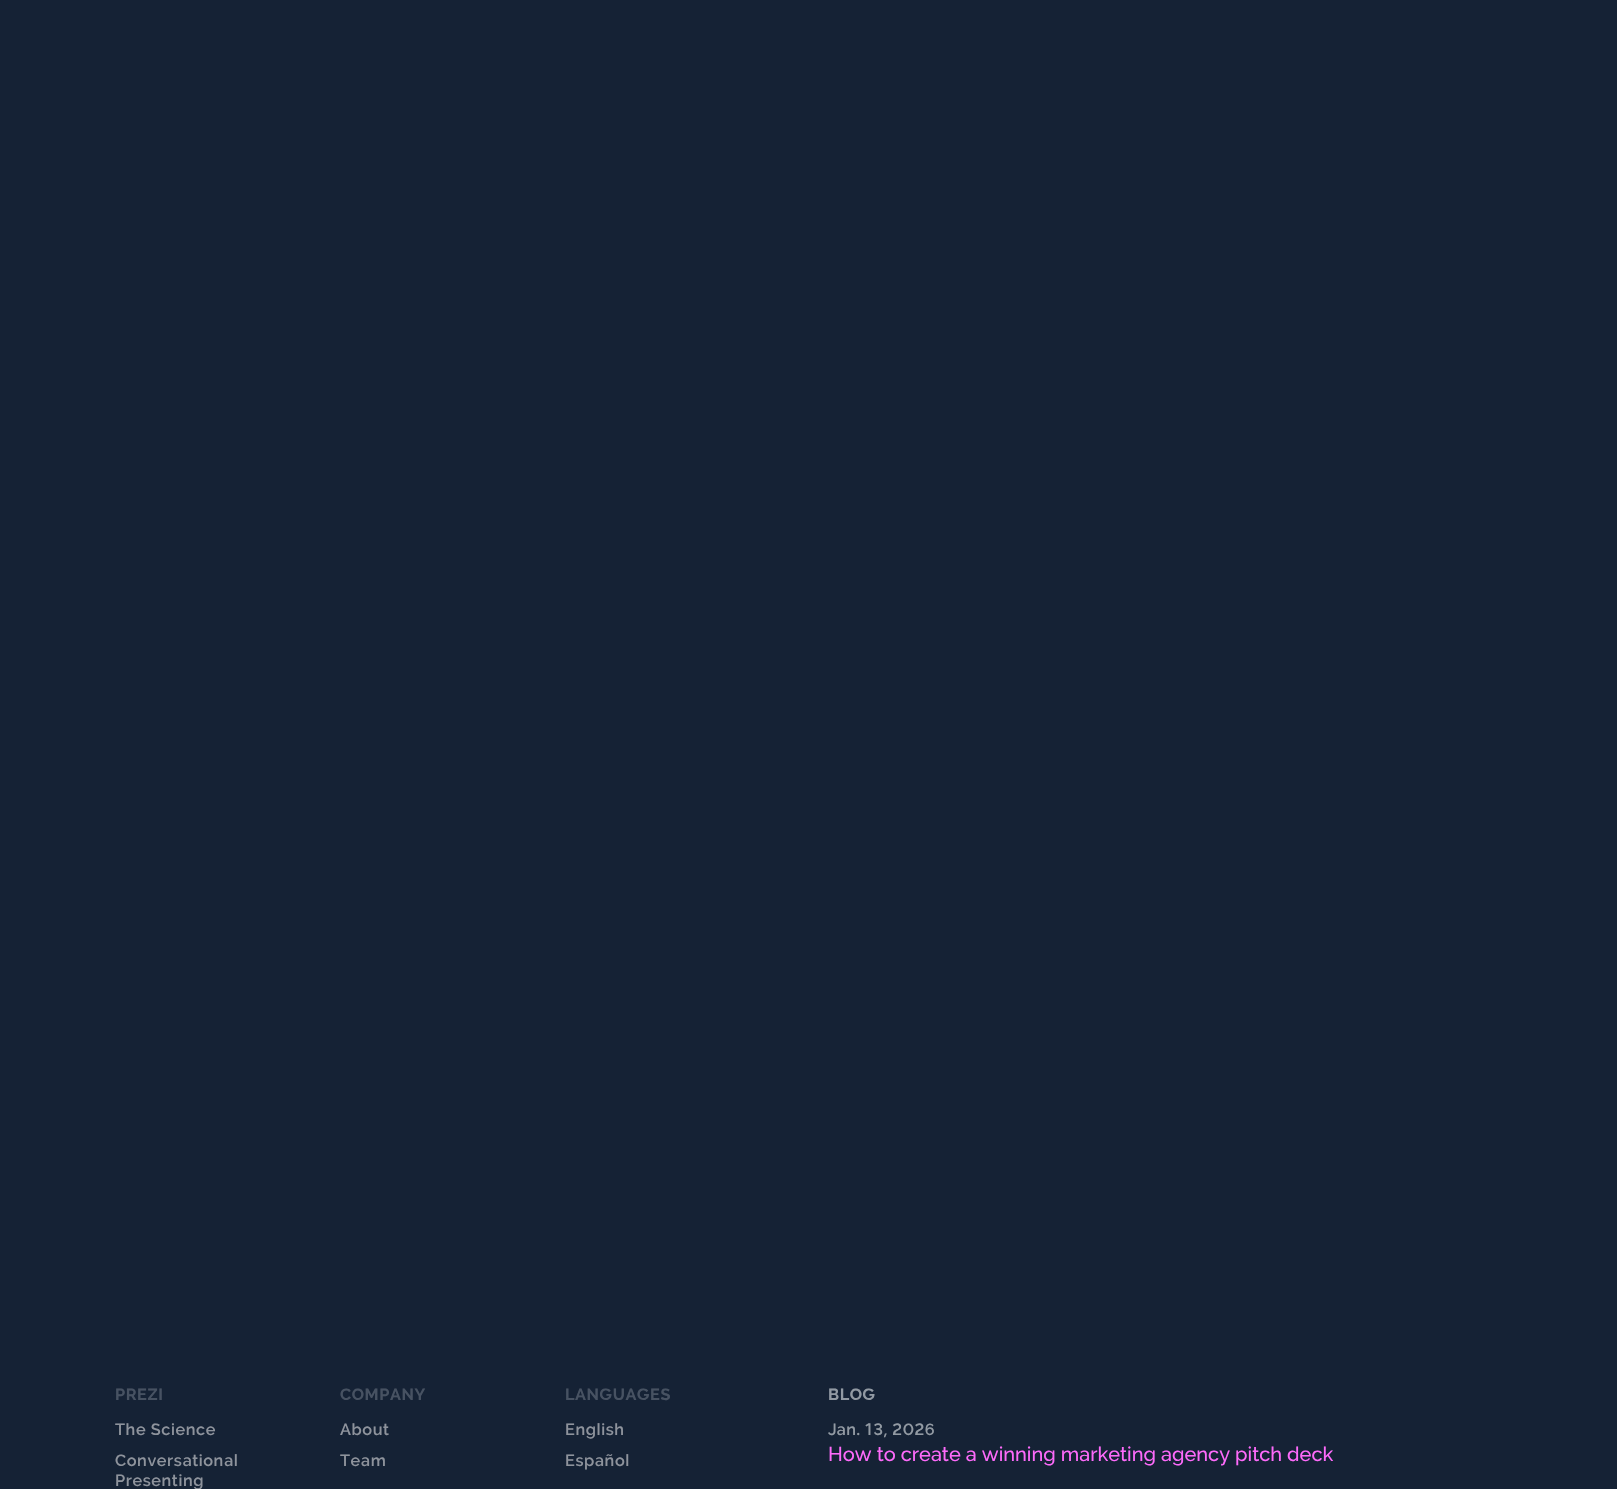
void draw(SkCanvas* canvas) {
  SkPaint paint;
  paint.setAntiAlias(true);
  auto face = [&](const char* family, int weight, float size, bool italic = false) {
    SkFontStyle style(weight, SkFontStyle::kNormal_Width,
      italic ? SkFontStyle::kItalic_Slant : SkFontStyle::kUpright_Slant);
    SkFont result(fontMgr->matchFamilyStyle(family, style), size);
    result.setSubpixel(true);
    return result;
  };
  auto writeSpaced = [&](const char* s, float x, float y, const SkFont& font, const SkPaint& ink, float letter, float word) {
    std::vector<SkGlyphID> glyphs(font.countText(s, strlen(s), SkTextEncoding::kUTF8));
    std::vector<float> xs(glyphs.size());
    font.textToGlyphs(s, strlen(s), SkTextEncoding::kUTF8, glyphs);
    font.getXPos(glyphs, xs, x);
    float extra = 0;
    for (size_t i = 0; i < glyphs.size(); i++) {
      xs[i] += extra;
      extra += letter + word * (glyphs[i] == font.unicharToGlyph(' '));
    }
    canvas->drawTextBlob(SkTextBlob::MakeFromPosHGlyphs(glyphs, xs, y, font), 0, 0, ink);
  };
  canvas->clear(0xff152235);
  auto f0 = face("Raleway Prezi", 700, 16.25f);
  paint.setColor(0xff475262);
  writeSpaced("PREZI", 115, 1400, f0, paint, 0.6f, 0);
  auto f1 = face("Raleway Prezi", 600, 16.25f);
  paint.setColor(0xff8e939c);
  {
    const struct { const char* s; float x, y; } items[] = {
      {"The Science", 115, 1435},
      {"Conversational", 115, 1466},
      {"Presenting", 115, 1486},
    };
    for (auto [s, x, y] : items) {
      writeSpaced(s, x, y, f1, paint, 0.6f, 0);
    }
  }
  paint.setColor(0xff475262);
  writeSpaced("COMPANY", 340, 1400, f0, paint, 0.6f, 0);
  paint.setColor(0xff8e939c);
  writeSpaced("About", 340, 1435, f1, paint, 0.6f, 0);
  writeSpaced("Team", 340, 1466, f1, paint, 0.6f, 0);
  paint.setColor(0xff475262);
  writeSpaced("LANGUAGES", 565, 1400, f0, paint, 0.6f, 0);
  paint.setColor(0xff8e939c);
  writeSpaced("English", 565, 1435, f1, paint, 0.6f, 0);
  writeSpaced("Español", 565, 1466, f1, paint, 0.6f, 0);
  paint.setColor(0xff929aa3);
  writeSpaced("BLOG", 828, 1400, f0, paint, 0.6f, 0);
  writeSpaced("Jan. 13, 2026", 828, 1435, f1, paint, 0.6f, 0);
  auto f2 = face("Raleway Prezi", 500, 20);
  paint.setColor(0xfffd6afa);
  canvas->drawString("How to create a winning marketing agency pitch deck", 828, 1461, f2, paint);
}
